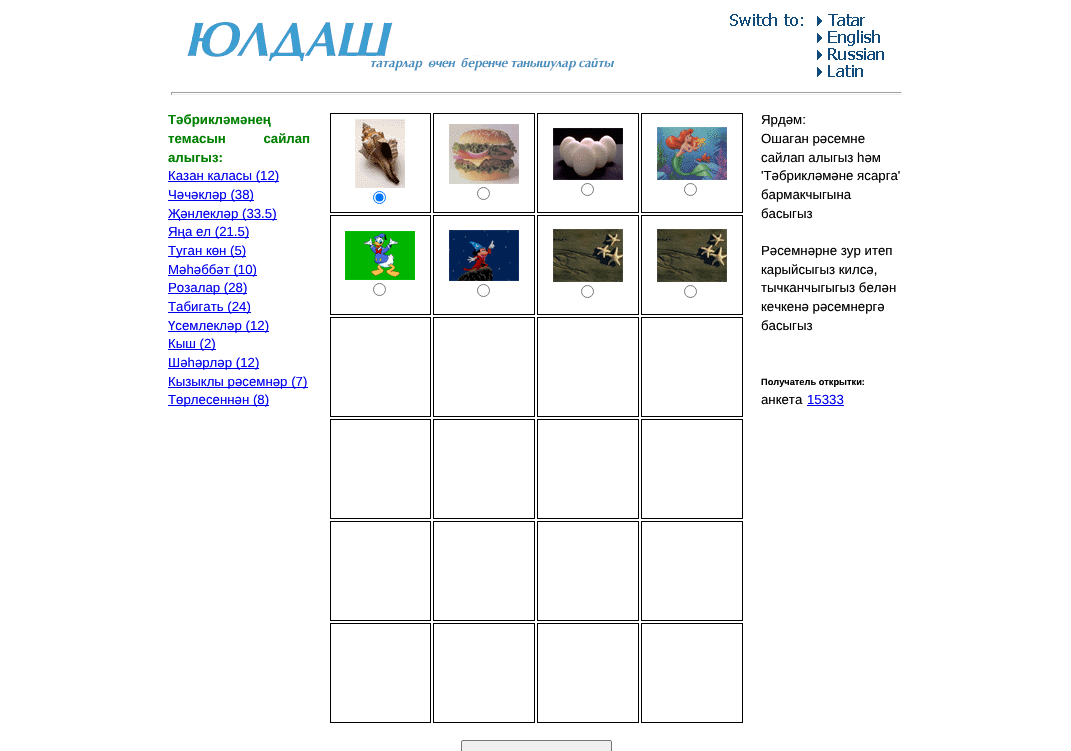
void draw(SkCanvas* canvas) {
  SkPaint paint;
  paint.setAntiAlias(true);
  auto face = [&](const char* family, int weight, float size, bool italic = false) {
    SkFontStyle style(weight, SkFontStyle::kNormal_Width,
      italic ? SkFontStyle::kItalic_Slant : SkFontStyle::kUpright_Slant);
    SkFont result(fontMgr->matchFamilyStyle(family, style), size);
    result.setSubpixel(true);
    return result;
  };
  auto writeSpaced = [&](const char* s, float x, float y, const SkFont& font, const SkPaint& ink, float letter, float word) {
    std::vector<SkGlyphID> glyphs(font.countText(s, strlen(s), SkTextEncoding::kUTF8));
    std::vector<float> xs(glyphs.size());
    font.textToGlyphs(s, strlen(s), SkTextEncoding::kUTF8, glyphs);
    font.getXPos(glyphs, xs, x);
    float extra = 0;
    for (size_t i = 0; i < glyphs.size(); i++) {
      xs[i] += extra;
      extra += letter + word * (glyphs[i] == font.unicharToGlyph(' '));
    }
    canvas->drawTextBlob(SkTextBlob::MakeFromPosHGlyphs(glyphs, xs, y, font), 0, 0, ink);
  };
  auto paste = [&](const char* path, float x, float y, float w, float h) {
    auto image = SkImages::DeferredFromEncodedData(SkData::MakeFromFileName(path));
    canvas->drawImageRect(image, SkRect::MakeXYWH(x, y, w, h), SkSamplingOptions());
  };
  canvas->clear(0xffffffff);
  paste("img/1.png", 187, 22, 427, 50);
  paste("img/2.png", 730, 13, 73, 13);
  paste("img/3.png", 817, 14, 48, 12);
  paste("img/4.png", 817, 30, 63, 16);
  paste("img/5.png", 817, 48, 67, 12);
  paste("img/6.png", 817, 65, 46, 12);
  {
    const struct { float x, y, w, h; SkColor color; } items[] = {
      {171, 92, 731, 1, 0xff9f9f9f},
      {901, 92, 1, 3, 0xffeeeeee},
      {171, 94, 731, 1, 0xffeeeeee},
      {171, 92, 1, 3, 0xff9f9f9f},
      {168, 181, 111, 1, 0xff0000ee},
      {168, 200, 86, 1, 0xff0000ee},
      {168, 219, 109, 1, 0xff0000ee},
      {168, 237, 81, 1, 0xff0000ee},
      {168, 256, 78, 1, 0xff0000ee},
      {168, 275, 89, 1, 0xff0000ee},
      {168, 293, 79, 1, 0xff0000ee},
      {168, 312, 83, 1, 0xff0000ee},
      {168, 331, 101, 1, 0xff0000ee},
      {168, 349, 48, 1, 0xff0000ee},
      {168, 368, 91, 1, 0xff0000ee},
      {168, 387, 140, 1, 0xff0000ee},
      {168, 405, 101, 1, 0xff0000ee},
    };
    for (auto [x, y, w, h, color] : items) {
      paint.setColor(color);
      canvas->drawRect(SkRect::MakeXYWH(x, y, w, h), paint);
    }
  }
  paint.setStroke(true);
  paint.setStrokeWidth(1);
  paint.setColor(0xff000000);
  canvas->drawRect(SkRect::MakeXYWH(330.5f, 113.5f, 100, 99), paint);
  paste("img/7.png", 355, 119, 50, 69);
  paint.setColor(0xff0075ff);
  canvas->drawCircle(379.5f, 197.5f, 6, paint);
  paint.setStroke(false);
  canvas->drawCircle(379.5f, 197.5f, 4, paint);
  paint.setStroke(true);
  paint.setColor(0xff000000);
  canvas->drawRect(SkRect::MakeXYWH(433.5f, 113.5f, 101, 99), paint);
  paste("img/8.png", 449, 124, 70, 60);
  paint.setColor(0xff767676);
  canvas->drawCircle(483.5f, 193.5f, 6, paint);
  paint.setColor(0xff000000);
  canvas->drawRect(SkRect::MakeXYWH(537.5f, 113.5f, 101, 99), paint);
  paste("img/9.png", 553, 128, 70, 52);
  paint.setColor(0xff767676);
  canvas->drawCircle(587.5f, 189.5f, 6, paint);
  paint.setColor(0xff000000);
  canvas->drawRect(SkRect::MakeXYWH(641.5f, 113.5f, 101, 99), paint);
  paste("img/10.png", 657, 127, 70, 53);
  paint.setColor(0xff767676);
  canvas->drawCircle(690.5f, 189.5f, 6, paint);
  paint.setColor(0xff000000);
  canvas->drawRect(SkRect::MakeXYWH(330.5f, 215.5f, 100, 99), paint);
  paste("img/11.png", 345, 231, 70, 49);
  paint.setColor(0xff767676);
  canvas->drawCircle(379.5f, 289.5f, 6, paint);
  paint.setColor(0xff000000);
  canvas->drawRect(SkRect::MakeXYWH(433.5f, 215.5f, 101, 99), paint);
  paste("img/12.png", 449, 230, 70, 51);
  paint.setColor(0xff767676);
  canvas->drawCircle(483.5f, 290.5f, 6, paint);
  paint.setColor(0xff000000);
  canvas->drawRect(SkRect::MakeXYWH(537.5f, 215.5f, 101, 99), paint);
  paste("img/13.png", 553, 229, 70, 53);
  paint.setColor(0xff767676);
  canvas->drawCircle(587.5f, 291.5f, 6, paint);
  paint.setColor(0xff000000);
  canvas->drawRect(SkRect::MakeXYWH(641.5f, 215.5f, 101, 99), paint);
  paste("img/13.png", 657, 229, 70, 53);
  paint.setColor(0xff767676);
  canvas->drawCircle(690.5f, 291.5f, 6, paint);
  paint.setColor(0xff000000);
  canvas->drawRect(SkRect::MakeXYWH(330.5f, 317.5f, 100, 99), paint);
  canvas->drawRect(SkRect::MakeXYWH(433.5f, 317.5f, 101, 99), paint);
  canvas->drawRect(SkRect::MakeXYWH(537.5f, 317.5f, 101, 99), paint);
  canvas->drawRect(SkRect::MakeXYWH(641.5f, 317.5f, 101, 99), paint);
  canvas->drawRect(SkRect::MakeXYWH(330.5f, 419.5f, 100, 99), paint);
  canvas->drawRect(SkRect::MakeXYWH(433.5f, 419.5f, 101, 99), paint);
  canvas->drawRect(SkRect::MakeXYWH(537.5f, 419.5f, 101, 99), paint);
  canvas->drawRect(SkRect::MakeXYWH(641.5f, 419.5f, 101, 99), paint);
  canvas->drawRect(SkRect::MakeXYWH(330.5f, 521.5f, 100, 99), paint);
  canvas->drawRect(SkRect::MakeXYWH(433.5f, 521.5f, 101, 99), paint);
  canvas->drawRect(SkRect::MakeXYWH(537.5f, 521.5f, 101, 99), paint);
  canvas->drawRect(SkRect::MakeXYWH(641.5f, 521.5f, 101, 99), paint);
  canvas->drawRect(SkRect::MakeXYWH(330.5f, 623.5f, 100, 99), paint);
  canvas->drawRect(SkRect::MakeXYWH(433.5f, 623.5f, 101, 99), paint);
  canvas->drawRect(SkRect::MakeXYWH(537.5f, 623.5f, 101, 99), paint);
  canvas->drawRect(SkRect::MakeXYWH(641.5f, 623.5f, 101, 99), paint);
  paint.setStroke(false);
  paint.setColor(0xffefefef);
  canvas->drawRoundRect(SkRect::MakeXYWH(461.5f, 740.5f, 150, 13), 1.5f, 1.5f, paint);
  paint.setStroke(true);
  paint.setColor(0xff767676);
  canvas->drawRoundRect(SkRect::MakeXYWH(461.5f, 740.5f, 150, 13), 1.5f, 1.5f, paint);
  paint.setStroke(false);
  paint.setColor(0xff0000ee);
  canvas->drawRect(SkRect::MakeXYWH(807, 405, 37, 1), paint);
  auto f0 = face("Liberation Sans", 700, 13.25f);
  paint.setColor(0xff008000);
  canvas->drawString("Тәбрикләмәнең", 168, 124, f0, paint);
  writeSpaced("темасын сайлап", 168, 143, f0, paint, 0, 34);
  canvas->drawString("алыгыз:", 168, 162, f0, paint);
  auto f1 = face("Liberation Sans", 400, 13.25f);
  paint.setColor(0xff0000ee);
  {
    const struct { const char* s; float x, y; } items[] = {
      {"Казан каласы (12)", 168, 180},
      {"Чәчәкләр (38)", 168, 199},
      {"Җәнлекләр (33.5)", 168, 218},
      {"Яңа ел (21.5)", 168, 236},
      {"Туган көн (5)", 168, 255},
      {"Мәһәббәт (10)", 168, 274},
      {"Розалар (28)", 168, 292},
      {"Табигать (24)", 168, 311},
      {"Үсемлекләр (12)", 168, 330},
      {"Кыш (2)", 168, 348},
      {"Шәһәрләр (12)", 168, 367},
      {"Кызыклы рәсемнәр (7)", 168, 386},
      {"Төрлесеннән (8)", 168, 404},
    };
    for (auto [s, x, y] : items) {
      canvas->drawString(s, x, y, f1, paint);
    }
  }
  paint.setColor(0xff000000);
  {
    const struct { const char* s; float x, y; } items[] = {
      {"Ярдәм:", 761, 124},
      {"Ошаган рәсемне", 761, 143},
      {"сайлап алыгыз һәм", 761, 162},
      {"'Тәбрикләмәне ясарга'", 761, 180},
      {"бармакчыгына", 761, 199},
      {"басыгыз", 761, 218},
      {"Рәсемнәрне зур итеп", 761, 255},
      {"карыйсыгыз килсә,", 761, 274},
      {"тычканчыгыгыз белән", 761, 292},
      {"кечкенә рәсемнергә", 761, 311},
      {"басыгыз", 761, 330},
    };
    for (auto [s, x, y] : items) {
      canvas->drawString(s, x, y, f1, paint);
    }
  }
  auto f2 = face("Liberation Sans", 700, 9.25f);
  canvas->drawString("Получатель открытки:", 761, 385, f2, paint);
  canvas->drawString("анкета", 761, 404, f1, paint);
  paint.setColor(0xff0000ee);
  canvas->drawString("15333", 807, 404, f1, paint);
}
